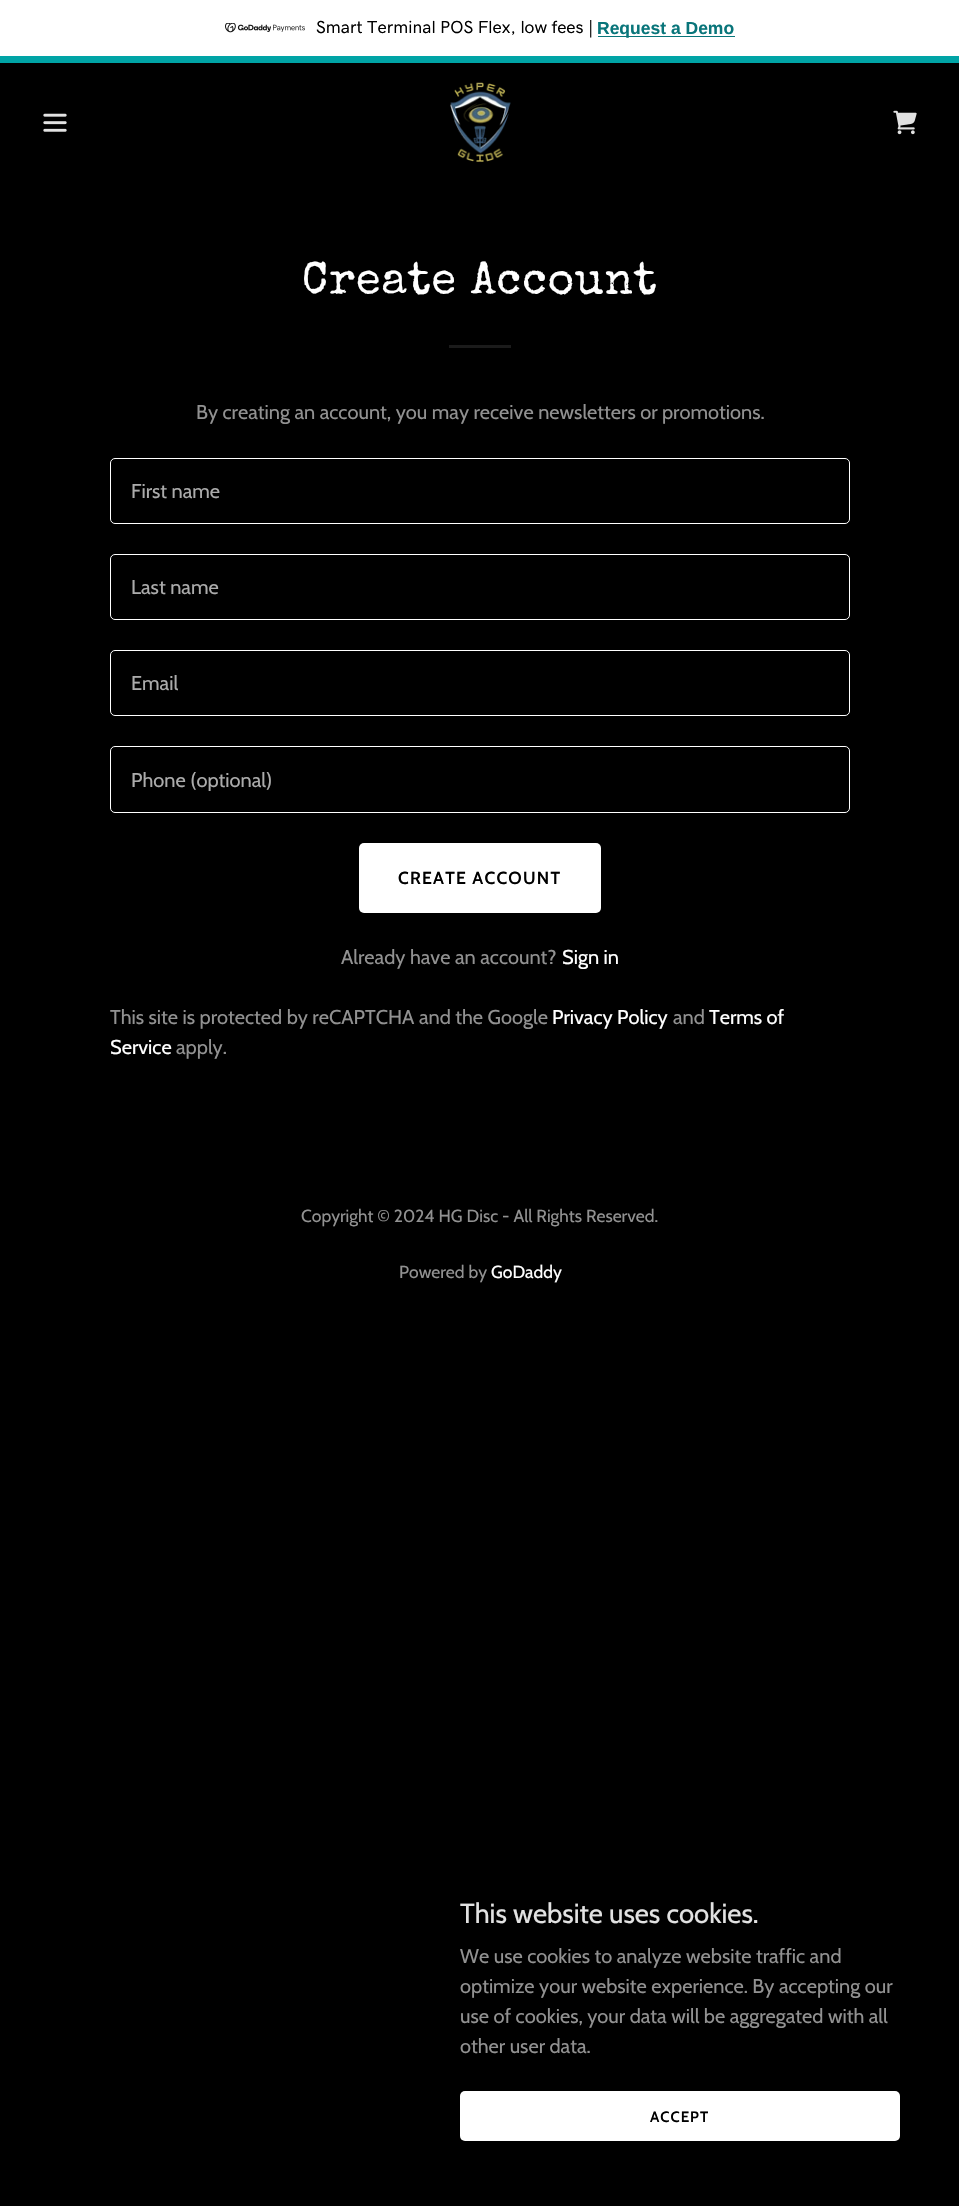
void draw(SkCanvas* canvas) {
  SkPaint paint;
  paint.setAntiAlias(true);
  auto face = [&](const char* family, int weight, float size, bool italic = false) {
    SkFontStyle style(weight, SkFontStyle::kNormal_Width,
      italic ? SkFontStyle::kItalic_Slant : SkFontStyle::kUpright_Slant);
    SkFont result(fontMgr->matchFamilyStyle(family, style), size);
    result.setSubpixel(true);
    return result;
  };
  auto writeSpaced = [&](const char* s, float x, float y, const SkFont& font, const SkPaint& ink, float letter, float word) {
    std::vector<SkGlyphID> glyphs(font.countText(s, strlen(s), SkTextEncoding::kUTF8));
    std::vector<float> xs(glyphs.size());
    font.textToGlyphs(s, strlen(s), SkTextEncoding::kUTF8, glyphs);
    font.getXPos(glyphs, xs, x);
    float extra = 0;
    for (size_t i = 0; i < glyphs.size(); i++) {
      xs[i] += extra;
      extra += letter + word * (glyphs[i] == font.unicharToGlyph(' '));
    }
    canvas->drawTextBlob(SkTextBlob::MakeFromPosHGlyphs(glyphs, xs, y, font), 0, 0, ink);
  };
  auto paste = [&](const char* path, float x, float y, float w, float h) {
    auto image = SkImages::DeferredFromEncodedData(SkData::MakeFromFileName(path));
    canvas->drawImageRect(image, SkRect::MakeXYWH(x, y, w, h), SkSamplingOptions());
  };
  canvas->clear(0xff000000);
  paint.setColor(0xffffffff);
  canvas->drawRect(SkRect::MakeXYWH(0, 0, 959, 56), paint);
  paint.setColor(0xff00a4a6);
  canvas->drawRect(SkRect::MakeXYWH(0, 56, 959, 7), paint);
  paste("img/1.png", 225, 23, 80, 10);
  paint.setColor(0xff09757a);
  canvas->drawRect(SkRect::MakeXYWH(598, 36, 137, 1), paint);
  paste("img/2.png", 43, 113, 24, 19);
  paste("img/3.png", 450, 82, 61, 80);
  paste("img/4.png", 893, 110, 24, 25);
  paint.setColor(0xff1b1b1b);
  canvas->drawRect(SkRect::MakeXYWH(449, 345, 62, 3), paint);
  paint.setStroke(true);
  paint.setStrokeWidth(1);
  paint.setColor(0xffffffff);
  canvas->drawRoundRect(SkRect::MakeXYWH(110.5f, 458.5f, 739, 65), 4.5f, 4.5f, paint);
  canvas->drawRoundRect(SkRect::MakeXYWH(110.5f, 554.5f, 739, 65), 4.5f, 4.5f, paint);
  canvas->drawRoundRect(SkRect::MakeXYWH(110.5f, 650.5f, 739, 65), 4.5f, 4.5f, paint);
  canvas->drawRoundRect(SkRect::MakeXYWH(110.5f, 746.5f, 739, 66), 4.5f, 4.5f, paint);
  paint.setStroke(false);
  canvas->drawRoundRect(SkRect::MakeXYWH(359, 843, 242, 70), 5, 5, paint);
  canvas->drawRoundRect(SkRect::MakeXYWH(460, 2091, 440, 50), 5, 5, paint);
  auto f0 = face("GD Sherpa", 500, 17.5f);
  paint.setColor(0xff000000);
  canvas->drawString("Smart Terminal POS Flex, low fees |", 316, 33, f0, paint);
  auto f1 = face("Liberation Sans", 700, 17.5f);
  paint.setColor(0xff09757a);
  canvas->drawString("Request a Demo", 597, 34, f1, paint);
  auto f2 = face("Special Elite", 400, 45);
  paint.setColor(0xffffffff);
  writeSpaced("Create Account", 302, 293, f2, paint, 0.9f, 0);
  auto f3 = face("Cabin", 400, 20);
  paint.setColor(0xff919191);
  canvas->drawString("By creating an account, you may receive newsletters or promotions.", 196, 419, f3, paint);
  paint.setColor(0xffababab);
  {
    const struct { const char* s; float x, y; } items[] = {
      {"First name", 131, 498},
      {"Last name", 131, 594},
      {"Email", 131, 690},
    };
    for (auto [s, x, y] : items) {
      canvas->drawString(s, x, y, f3, paint);
    }
  }
  canvas->save();
  canvas->clipRect(SkRect::MakeXYWH(131, 768, 698, 23));
  canvas->drawString("Phone (optional)", 131, 787, f3, paint);
  canvas->restore();
  auto f4 = face("Cabin", 600, 17.5f);
  paint.setColor(0xff000000);
  writeSpaced("CREATE ACCOUNT", 398, 884, f4, paint, 1.25f, 0);
  paint.setColor(0xff919191);
  canvas->drawString("Already have an account?", 341, 964, f3, paint);
  paint.setColor(0xffffffff);
  canvas->drawString("Sign in", 562, 964, f3, paint);
  paint.setColor(0xff919191);
  canvas->drawString("This site is protected by reCAPTCHA and the Google", 110, 1024, f3, paint);
  paint.setColor(0xffffffff);
  canvas->drawString("Privacy Policy", 552, 1024, f3, paint);
  paint.setColor(0xff919191);
  canvas->drawString("and", 673, 1024, f3, paint);
  paint.setColor(0xffffffff);
  canvas->drawString("Terms of", 709, 1024, f3, paint);
  canvas->drawString("Service", 110, 1054, f3, paint);
  paint.setColor(0xff919191);
  canvas->drawString("apply.", 176, 1054, f3, paint);
  auto f5 = face("Cabin", 400, 17.5f);
  canvas->drawString("Copyright © 2024 HG Disc - All Rights Reserved.", 301, 1222, f5, paint);
  canvas->drawString("Powered by", 399, 1278, f5, paint);
  paint.setColor(0xffffffff);
  canvas->drawString("GoDaddy", 491, 1278, f5, paint);
  auto f6 = face("Cabin", 400, 27.5f);
  paint.setColor(0xffe2e2e2);
  canvas->drawString("This website uses cookies.", 460, 1923, f6, paint);
  paint.setColor(0xff919191);
  {
    const struct { const char* s; float x, y; } items[] = {
      {"We use cookies to analyze website traffic and", 460, 1963},
      {"optimize your website experience. By accepting our", 460, 1993},
      {"use of cookies, your data will be aggregated with all", 460, 2023},
      {"other user data.", 460, 2053},
    };
    for (auto [s, x, y] : items) {
      canvas->drawString(s, x, y, f3, paint);
    }
  }
  auto f7 = face("Cabin", 600, 15);
  paint.setColor(0xff000000);
  writeSpaced("ACCEPT", 650, 2122, f7, paint, 1, 0);
}
